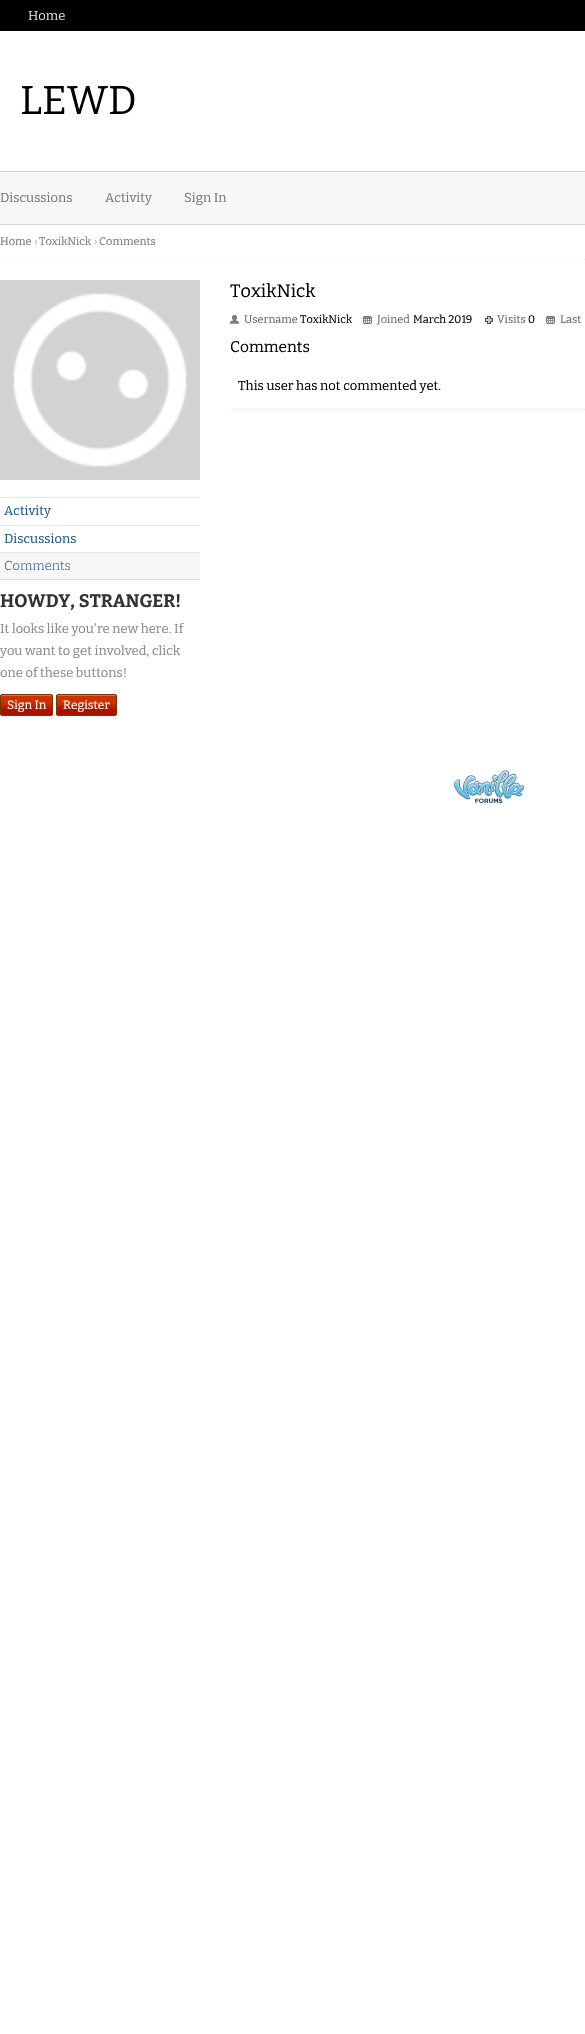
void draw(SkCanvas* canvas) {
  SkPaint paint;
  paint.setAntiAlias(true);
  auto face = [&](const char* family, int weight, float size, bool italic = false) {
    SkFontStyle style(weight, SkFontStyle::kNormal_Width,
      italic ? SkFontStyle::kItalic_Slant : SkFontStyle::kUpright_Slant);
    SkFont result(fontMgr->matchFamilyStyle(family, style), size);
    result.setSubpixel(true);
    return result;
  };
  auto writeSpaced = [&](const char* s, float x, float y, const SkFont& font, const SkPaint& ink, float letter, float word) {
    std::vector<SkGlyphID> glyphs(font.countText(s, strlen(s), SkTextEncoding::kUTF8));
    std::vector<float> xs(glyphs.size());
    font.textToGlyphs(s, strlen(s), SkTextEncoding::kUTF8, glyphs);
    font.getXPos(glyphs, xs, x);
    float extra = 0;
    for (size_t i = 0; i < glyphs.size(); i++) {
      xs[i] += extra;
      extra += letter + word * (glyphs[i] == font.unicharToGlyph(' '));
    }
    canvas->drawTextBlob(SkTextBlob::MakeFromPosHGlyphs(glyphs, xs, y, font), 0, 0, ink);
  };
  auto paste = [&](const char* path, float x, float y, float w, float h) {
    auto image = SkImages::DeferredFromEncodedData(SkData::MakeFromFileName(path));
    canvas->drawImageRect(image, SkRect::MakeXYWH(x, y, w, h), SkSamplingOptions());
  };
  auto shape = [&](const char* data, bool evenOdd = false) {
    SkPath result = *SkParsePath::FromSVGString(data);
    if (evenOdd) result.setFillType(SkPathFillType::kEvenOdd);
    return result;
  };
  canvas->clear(0xffffffff);
  {
    const struct { float x, y, w, h; SkColor color; } items[] = {
      {0, 0, 585, 31, 0xff000000},
      {0, 172, 585, 52, 0xfff7f7f7},
      {0, 171, 585, 1, 0xffd0d0d0},
      {0, 224, 585, 1, 0xffd0d0d0},
    };
    for (auto [x, y, w, h, color] : items) {
      paint.setColor(color);
      canvas->drawRect(SkRect::MakeXYWH(x, y, w, h), paint);
    }
  }
  paint.setStroke(true);
  paint.setStrokeWidth(1);
  paint.setColor(0xffeeeeee);
  paint.setPathEffect(SkDashPathEffect::Make({{1, 1}}, 0));
  canvas->drawPath(shape("M0 259.5H585"), paint);
  paint.setPathEffect(nullptr);
  paste("img/1.png", 230, 315, 9, 9);
  paste("img/2.png", 363, 316, 9, 8);
  paste("img/3.png", 485, 316, 8, 8);
  paste("img/2.png", 546, 316, 9, 8);
  paint.setColor(0xffe6e6e6);
  paint.setPathEffect(SkDashPathEffect::Make({{1, 1}}, 0));
  canvas->drawPath(shape("M230 409.5H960"), paint);
  paint.setPathEffect(nullptr);
  paste("img/4.png", 0, 280, 200, 200);
  paint.setStroke(false);
  {
    const struct { float x, y, w, h; SkColor color; } items[] = {
      {0, 497, 200, 1, 0xffe6e6e6},
      {0, 525, 200, 1, 0xffe6e6e6},
      {0, 552, 200, 1, 0xffe6e6e6},
      {0, 553, 200, 26, 0xfff7f7f7},
      {0, 579, 200, 1, 0xffdedede},
    };
    for (auto [x, y, w, h, color] : items) {
      paint.setColor(color);
      canvas->drawRect(SkRect::MakeXYWH(x, y, w, h), paint);
    }
  }
  canvas->save();
  canvas->clipPath(shape("M2 694H51C52 694 53 695 53 696V714C53 715 52 716 51 716H2C1 716 0 715 0 714V696C0 695 1 694 2 694Z"), true);
  {
    const SkColor colors[] = {0xffaa1100, 0xffcc3300};
    const float stops[] = {0.25f, 0.63f};
    const SkPoint ends[] = {{1, 715}, {1, 695}};
    paint.setShader(SkGradientShader::MakeLinear(ends, colors, stops, 2, SkTileMode::kClamp));
    paint.setAlpha(255);
  }
  canvas->drawRect(SkRect::MakeXYWH(0, 695, 53, 20), paint);
  canvas->restore();
  paint.setShader(nullptr);
  paint.setColor(0xffdb704d);
  canvas->drawPath(shape("M2 696H51L52 697C52 693 47 695 43 695H10C4 695 1 693 1 698ZM52 714H52ZM1 714H1Z", true), paint);
  paint.setStroke(true);
  paint.setColor(0xff763407);
  canvas->drawRoundRect(SkRect::MakeXYWH(0.5f, 694.5f, 52, 21), 1.5f, 1.5f, paint);
  canvas->save();
  canvas->clipPath(shape("M58 694H115C116 694 117 695 117 696V714C117 715 116 716 115 716H58C57 716 56 715 56 714V696C56 695 57 694 58 694Z"), true);
  paint.setStroke(false);
  {
    const SkColor colors[] = {0xffaa1100, 0xffcc3300};
    const float stops[] = {0.25f, 0.63f};
    const SkPoint ends[] = {{57, 715}, {57, 695}};
    paint.setShader(SkGradientShader::MakeLinear(ends, colors, stops, 2, SkTileMode::kClamp));
    paint.setAlpha(255);
  }
  canvas->drawRect(SkRect::MakeXYWH(56, 695, 61, 20), paint);
  canvas->restore();
  paint.setShader(nullptr);
  paint.setColor(0x4dffffff);
  canvas->drawPath(shape("M58 696H115C116 696 116 696 116 697C116 692 109 695 106 695H68C64 695 57 692 57 697C57 696 57 696 58 696Z"), paint);
  paint.setStroke(true);
  paint.setColor(0xff763407);
  canvas->drawRoundRect(SkRect::MakeXYWH(56.5f, 694.5f, 60, 21), 1.5f, 1.5f, paint);
  paste("img/5.png", 454, 770, 70, 33);
  auto f0 = face("Bitter", 400, 13);
  paint.setStroke(false);
  paint.setColor(0xffdddddd);
  canvas->drawString("Home", 28, 20, f0, paint);
  auto f1 = face("Bitter", 400, 40);
  paint.setColor(0xff000000);
  canvas->drawString("LEWD", 20, 114, f1, paint);
  paint.setColor(0xff777777);
  {
    const struct { const char* s; float x, y; } items[] = {
      {"Discussions", 0, 202},
      {"Activity", 105, 202},
      {"Sign In", 184, 202},
    };
    for (auto [s, x, y] : items) {
      canvas->drawString(s, x, y, f0, paint);
    }
  }
  auto f2 = face("Bitter", 400, 11);
  canvas->drawString("Home", 0, 245, f2, paint);
  paint.setColor(0xffaaaaaa);
  canvas->drawString("›", 34, 245, f2, paint);
  paint.setColor(0xff777777);
  canvas->drawString("ToxikNick", 39, 245, f2, paint);
  paint.setColor(0xffaaaaaa);
  canvas->drawString("›", 94, 245, f2, paint);
  paint.setColor(0xff777777);
  canvas->drawString("Comments", 99, 245, f2, paint);
  auto f3 = face("Bitter", 400, 18);
  paint.setColor(0xff000000);
  canvas->drawString("ToxikNick", 230, 297, f3, paint);
  paint.setColor(0xff666666);
  canvas->drawString("Username", 244, 323, f2, paint);
  paint.setColor(0xff000000);
  canvas->drawString("ToxikNick", 300, 323, f2, paint);
  paint.setColor(0xff666666);
  canvas->drawString("Joined", 377, 323, f2, paint);
  paint.setColor(0xff000000);
  canvas->drawString("March 2019", 413, 323, f2, paint);
  paint.setColor(0xff666666);
  canvas->drawString("Visits", 497, 323, f2, paint);
  paint.setColor(0xff000000);
  canvas->drawString("0", 528, 323, f2, paint);
  paint.setColor(0xff666666);
  canvas->drawString("Last", 560, 323, f2, paint);
  auto f4 = face("Bitter", 400, 15.5f);
  paint.setColor(0xff000000);
  canvas->drawString("Comments", 230, 352, f4, paint);
  canvas->drawString("This user has not commented yet.", 238, 390, f0, paint);
  paint.setColor(0xff1d5689);
  canvas->drawString("Activity", 4, 515, f0, paint);
  canvas->drawString("Discussions", 4, 543, f0, paint);
  auto f5 = face("Bitter", 300, 13);
  canvas->drawString("Comments", 4, 570, f5, paint);
  auto f6 = face("Bitter", 700, 18);
  paint.setColor(0xff333333);
  writeSpaced("HOWDY, STRANGER!", 0, 607, f6, paint, 0, 1);
  paint.setColor(0xff888888);
  {
    const struct { const char* s; float x, y; } items[] = {
      {"It looks like you're new here. If", 0, 633},
      {"you want to get involved, click", 0, 655},
      {"one of these buttons!", 0, 677},
    };
    for (auto [s, x, y] : items) {
      canvas->drawString(s, x, y, f0, paint);
    }
  }
  auto f7 = face("Bitter", 400, 12);
  paint.setColor(0xffffffff);
  canvas->drawString("Sign In", 7, 709, f7, paint);
  canvas->drawString("Register", 63, 709, f7, paint);
}
